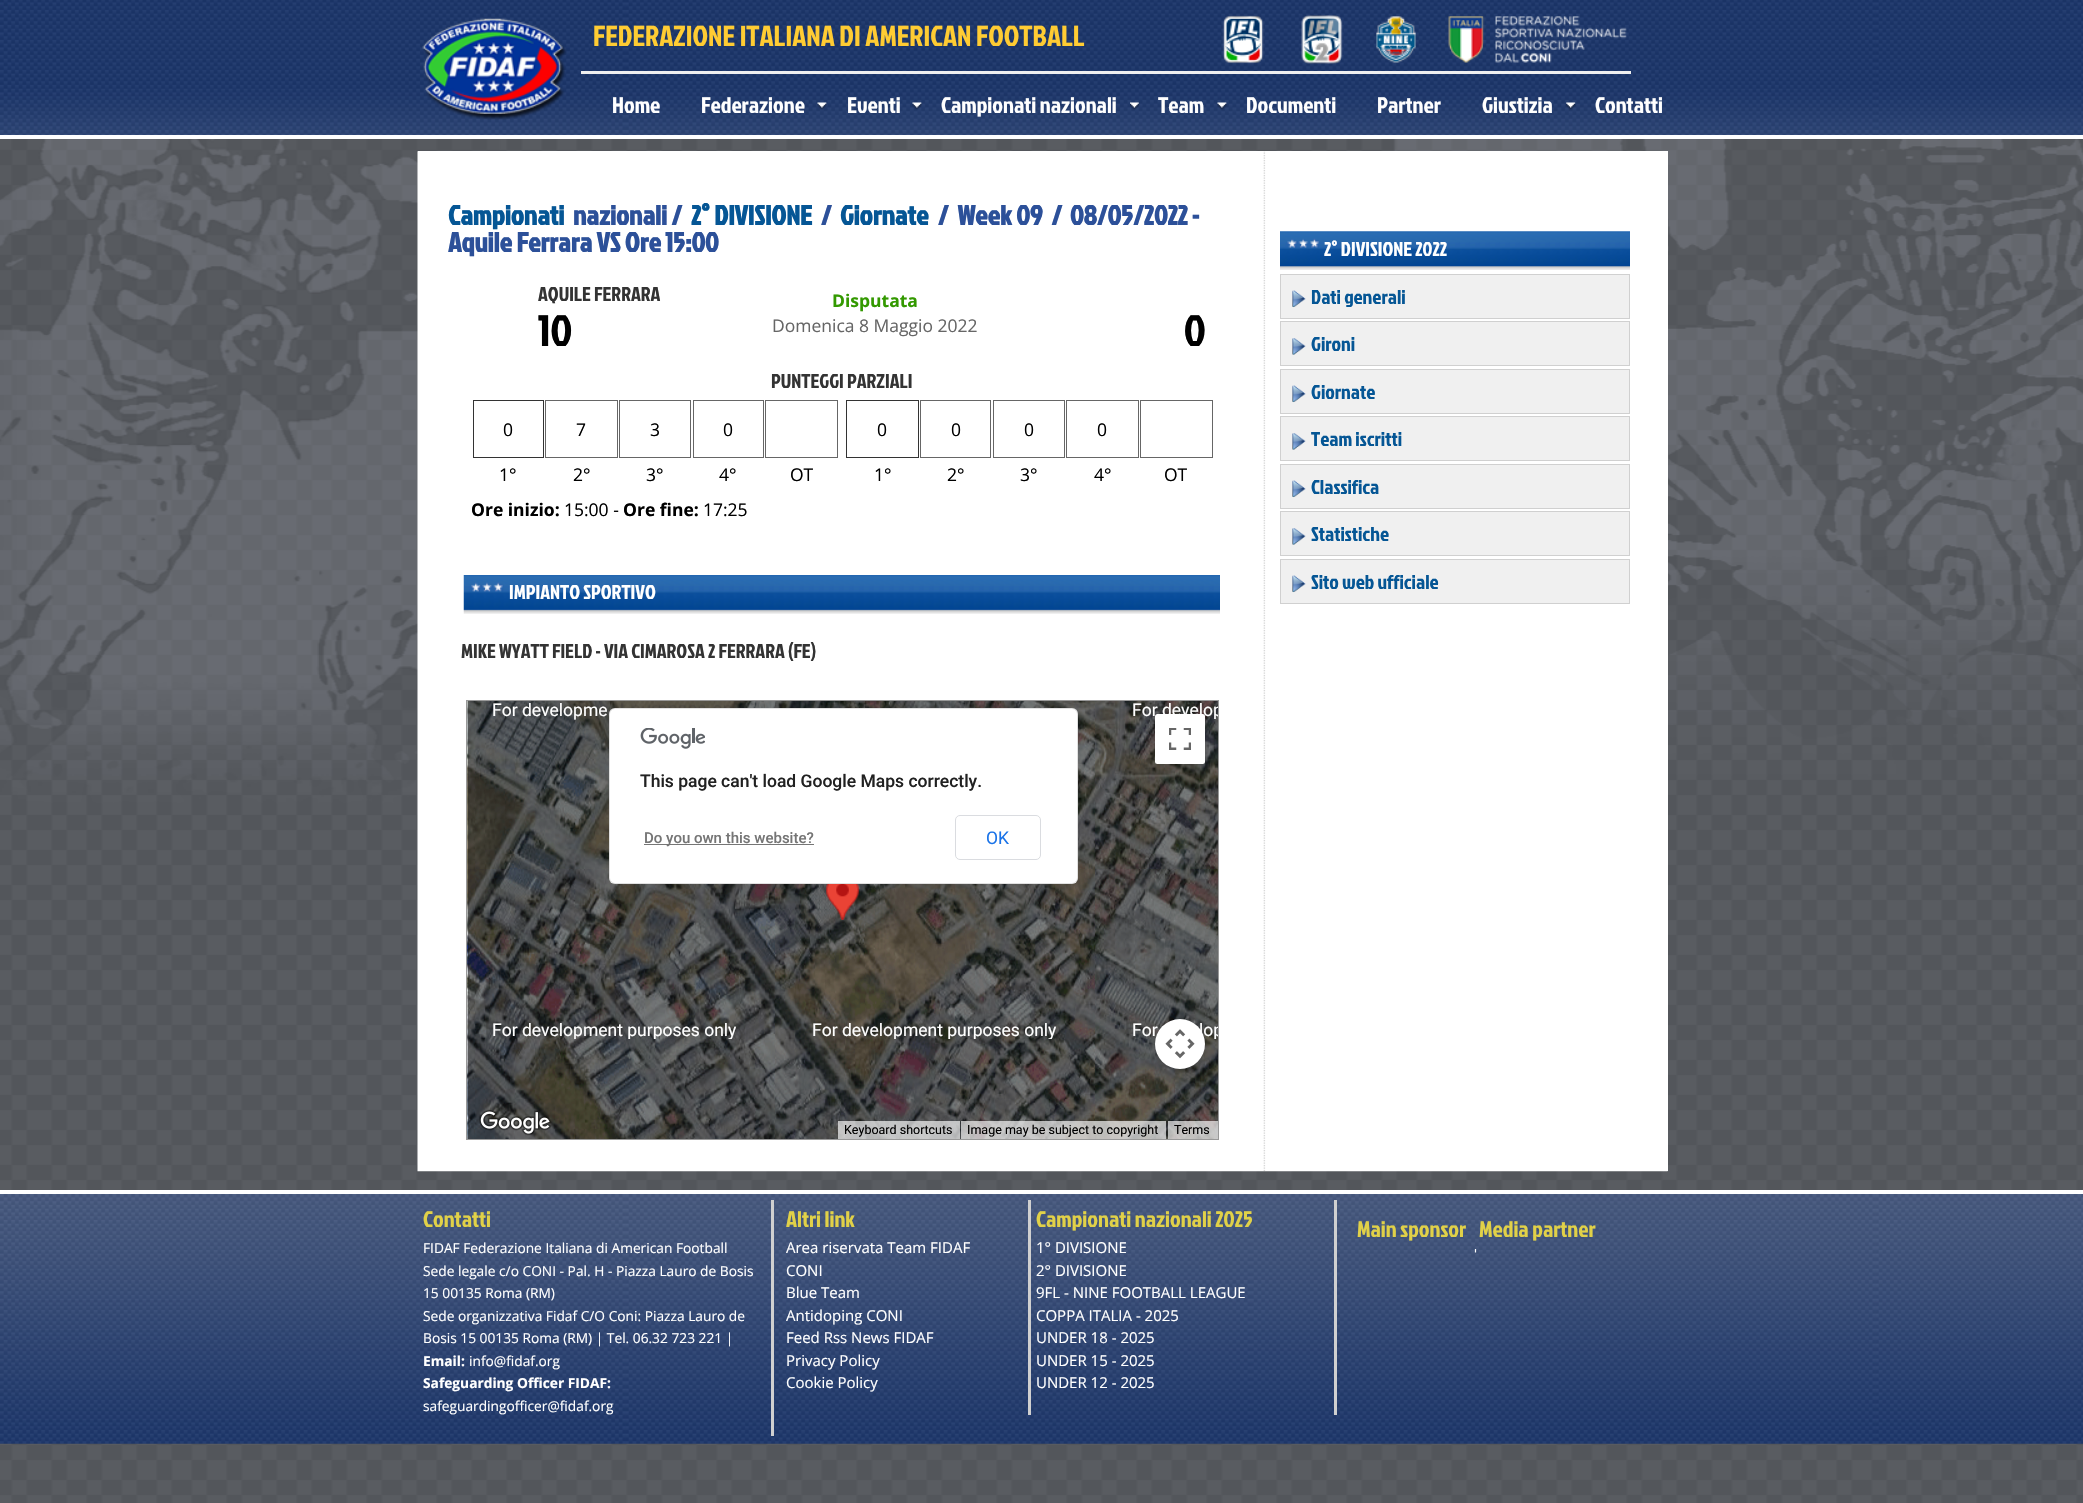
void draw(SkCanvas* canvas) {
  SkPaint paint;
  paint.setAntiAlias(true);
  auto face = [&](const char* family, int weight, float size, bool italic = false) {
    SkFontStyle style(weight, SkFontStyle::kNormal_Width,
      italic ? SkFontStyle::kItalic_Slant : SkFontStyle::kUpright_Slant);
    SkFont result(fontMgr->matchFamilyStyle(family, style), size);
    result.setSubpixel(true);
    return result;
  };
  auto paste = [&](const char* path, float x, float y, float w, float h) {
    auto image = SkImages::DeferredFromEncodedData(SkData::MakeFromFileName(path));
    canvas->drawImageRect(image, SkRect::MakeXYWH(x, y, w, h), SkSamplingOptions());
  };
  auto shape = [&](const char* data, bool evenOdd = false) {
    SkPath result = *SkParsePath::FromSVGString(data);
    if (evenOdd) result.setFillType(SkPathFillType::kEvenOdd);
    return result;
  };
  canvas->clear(0xffffffff);
  paste("img/1.png", 0, 139, 2083, 1364);
  paste("img/2.png", 0, 0, 2083, 135);
  paste("img/3.png", 422, 18, 145, 102);
  paint.setColor(0xfff0f0f0);
  canvas->drawRect(SkRect::MakeXYWH(581, 71, 1050, 3), paint);
  paste("img/4.png", 1222, 15, 405, 49);
  paste("img/5.png", 817, 102, 10, 8);
  paste("img/6.png", 912, 102, 11, 8);
  paste("img/7.png", 1130, 102, 10, 8);
  paste("img/8.png", 1217, 102, 10, 8);
  paste("img/9.png", 1566, 102, 10, 8);
  paint.setColor(0xffffffff);
  canvas->drawRect(SkRect::MakeXYWH(418, 151, 1250, 1020), paint);
  paste("img/10.png", 417, 151, 1251, 1021);
  paint.setStroke(true);
  paint.setStrokeWidth(1);
  paint.setColor(0xff333333);
  canvas->drawRect(SkRect::MakeXYWH(473.5f, 400.5f, 70, 57), paint);
  paint.setColor(0xff666666);
  canvas->drawRect(SkRect::MakeXYWH(545.5f, 400.5f, 72, 57), paint);
  canvas->drawRect(SkRect::MakeXYWH(619.5f, 400.5f, 71, 57), paint);
  canvas->drawRect(SkRect::MakeXYWH(693.5f, 400.5f, 70, 57), paint);
  canvas->drawRect(SkRect::MakeXYWH(765.5f, 400.5f, 72, 57), paint);
  paint.setColor(0xff333333);
  canvas->drawRect(SkRect::MakeXYWH(846.5f, 400.5f, 72, 57), paint);
  paint.setColor(0xff666666);
  canvas->drawRect(SkRect::MakeXYWH(920.5f, 400.5f, 70, 57), paint);
  canvas->drawRect(SkRect::MakeXYWH(993.5f, 400.5f, 71, 57), paint);
  canvas->drawRect(SkRect::MakeXYWH(1066.5f, 400.5f, 72, 57), paint);
  canvas->drawRect(SkRect::MakeXYWH(1140.5f, 400.5f, 72, 57), paint);
  paste("img/11.png", 463, 575, 757, 39);
  paste("img/12.png", 471, 582, 32, 10);
  paint.setColor(0xff999999);
  canvas->drawRect(SkRect::MakeXYWH(466.5f, 700.5f, 752, 439), paint);
  paste("img/13.png", 467, 701, 308, 168);
  paste("img/14.png", 775, 701, 320, 168);
  paste("img/15.png", 1095, 701, 123, 168);
  paste("img/16.png", 467, 869, 308, 270);
  paste("img/17.png", 775, 869, 320, 270);
  paste("img/18.png", 1095, 869, 123, 270);
  paste("img/19.png", 826, 884, 33, 36);
  paint.setStroke(false);
  paint.setColor(0x4d000000);
  paint.setMaskFilter(SkMaskFilter::MakeBlur(kNormal_SkBlurStyle, 2.5f));
  canvas->drawRoundRect(SkRect::MakeXYWH(1156, 716, 48, 48), 1, 1, paint);
  paint.setMaskFilter(nullptr);
  paint.setColor(0xffffffff);
  canvas->drawRoundRect(SkRect::MakeXYWH(1155, 714, 50, 50), 2.5f, 2.5f, paint);
  paste("img/20.png", 1169, 728, 22, 22);
  paint.setColor(0x4d000000);
  paint.setMaskFilter(SkMaskFilter::MakeBlur(kNormal_SkBlurStyle, 2.5f));
  canvas->drawRoundRect(SkRect::MakeXYWH(1156, 1021, 48, 48), 24, 24, paint);
  paint.setMaskFilter(nullptr);
  paint.setColor(0xffffffff);
  canvas->drawCircle(1180, 1044, 25, paint);
  paste("img/21.png", 1165, 1029, 30, 30);
  paste("img/22.png", 479, 1110, 73, 26);
  {
    const struct { float x, y, w, h; SkColor color; } items[] = {
      {838, 1121, 122, 18, 0xb3f5f5f5},
      {961, 1121, 205, 18, 0xb3f5f5f5},
      {1168, 1121, 50, 18, 0xb3f5f5f5},
    };
    for (auto [x, y, w, h, color] : items) {
      paint.setColor(color);
      canvas->drawRect(SkRect::MakeXYWH(x, y, w, h), paint);
    }
  }
  paint.setColor(0xffffffff);
  canvas->drawRoundRect(SkRect::MakeXYWH(609, 708, 469, 176), 6, 6, paint);
  paint.setStroke(true);
  paint.setColor(0x1f000000);
  canvas->drawRoundRect(SkRect::MakeXYWH(609.5f, 708.5f, 468, 175), 5.5f, 5.5f, paint);
  paste("img/23.png", 640, 728, 65, 21);
  paint.setStroke(false);
  paint.setColor(0xff757575);
  canvas->drawRect(SkRect::MakeXYWH(644, 844, 170, 1), paint);
  paint.setStroke(true);
  paint.setColor(0xffdadce0);
  canvas->drawRoundRect(SkRect::MakeXYWH(955.5f, 815.5f, 85, 44), 4.5f, 4.5f, paint);
  paste("img/24.png", 1280, 231, 350, 39);
  paste("img/25.png", 1287, 238, 32, 10);
  paint.setStroke(false);
  paint.setColor(0xfff0f0f0);
  canvas->drawRect(SkRect::MakeXYWH(1280.5f, 274.5f, 349, 44), paint);
  paint.setStroke(true);
  paint.setColor(0xffd0d0d0);
  canvas->drawRect(SkRect::MakeXYWH(1280.5f, 274.5f, 349, 44), paint);
  paste("img/26.png", 1292, 290, 14, 18);
  paint.setStroke(false);
  paint.setColor(0xfff0f0f0);
  canvas->drawRect(SkRect::MakeXYWH(1280.5f, 321.5f, 349, 44), paint);
  paint.setStroke(true);
  paint.setColor(0xffd0d0d0);
  canvas->drawRect(SkRect::MakeXYWH(1280.5f, 321.5f, 349, 44), paint);
  paste("img/27.png", 1292, 338, 14, 17);
  paint.setStroke(false);
  paint.setColor(0xfff0f0f0);
  canvas->drawRect(SkRect::MakeXYWH(1280.5f, 369.5f, 349, 44), paint);
  paint.setStroke(true);
  paint.setColor(0xffd0d0d0);
  canvas->drawRect(SkRect::MakeXYWH(1280.5f, 369.5f, 349, 44), paint);
  paste("img/26.png", 1292, 385, 14, 18);
  paint.setStroke(false);
  paint.setColor(0xfff0f0f0);
  canvas->drawRect(SkRect::MakeXYWH(1280.5f, 416.5f, 349, 44), paint);
  paint.setStroke(true);
  paint.setColor(0xffd0d0d0);
  canvas->drawRect(SkRect::MakeXYWH(1280.5f, 416.5f, 349, 44), paint);
  paste("img/28.png", 1292, 433, 14, 17);
  paint.setStroke(false);
  paint.setColor(0xfff0f0f0);
  canvas->drawRect(SkRect::MakeXYWH(1280.5f, 464.5f, 349, 44), paint);
  paint.setStroke(true);
  paint.setColor(0xffd0d0d0);
  canvas->drawRect(SkRect::MakeXYWH(1280.5f, 464.5f, 349, 44), paint);
  paste("img/26.png", 1292, 480, 14, 18);
  paint.setStroke(false);
  paint.setColor(0xfff0f0f0);
  canvas->drawRect(SkRect::MakeXYWH(1280.5f, 511.5f, 349, 44), paint);
  paint.setStroke(true);
  paint.setColor(0xffd0d0d0);
  canvas->drawRect(SkRect::MakeXYWH(1280.5f, 511.5f, 349, 44), paint);
  paste("img/29.png", 1292, 528, 14, 17);
  paint.setStroke(false);
  paint.setColor(0xfff0f0f0);
  canvas->drawRect(SkRect::MakeXYWH(1280.5f, 559.5f, 349, 44), paint);
  paint.setStroke(true);
  paint.setColor(0xffd0d0d0);
  canvas->drawRect(SkRect::MakeXYWH(1280.5f, 559.5f, 349, 44), paint);
  paste("img/26.png", 1292, 575, 14, 18);
  paste("img/30.png", 0, 1194, 2083, 250);
  paint.setStroke(false);
  {
    const struct { float x, y, w, h; SkColor color; } items[] = {
      {0, 1190, 2083, 4, 0xffffffff},
      {771, 1200, 3, 236, 0xffd0d0d0},
      {1334, 1200, 3, 215, 0xffd0d0d0},
      {1028, 1200, 3, 215, 0xffd0d0d0},
    };
    for (auto [x, y, w, h, color] : items) {
      paint.setColor(color);
      canvas->drawRect(SkRect::MakeXYWH(x, y, w, h), paint);
    }
  }
  paint.setStroke(true);
  paint.setStrokeWidth(1.2f);
  paint.setColor(0xffffffff);
  canvas->drawPath(shape("M1475.5 1249V1252.5"), paint);
  auto f0 = face("Jockey One", 400, 28.75f);
  paint.setStroke(false);
  paint.setColor(0xffffcc33);
  canvas->drawString("FEDERAZIONE ITALIANA DI AMERICAN FOOTBALL", 593, 46, f0, paint);
  auto f1 = face("Jockey One", 400, 22.5f);
  paint.setColor(0xffffffff);
  {
    const struct { const char* s; float x, y; } items[] = {
      {"Home", 612, 113},
      {"Federazione", 701, 113},
      {"Eventi", 847, 113},
      {"Campionati nazionali", 941, 113},
      {"Team", 1158, 113},
      {"Documenti", 1246, 113},
      {"Partner", 1377, 113},
      {"Giustizia", 1482, 113},
      {"Contatti", 1595, 113},
    };
    for (auto [s, x, y] : items) {
      canvas->drawString(s, x, y, f1, paint);
    }
  }
  auto f2 = face("Jockey One", 700, 27.5f);
  paint.setColor(0xff055695);
  canvas->drawString("Campionati", 448, 225, f2, paint);
  paint.setColor(0xff2c5099);
  canvas->drawString("nazionali /", 573, 225, f2, paint);
  paint.setColor(0xff055695);
  canvas->drawString("2° DIVISIONE", 691, 225, f2, paint);
  paint.setColor(0xff2c5099);
  canvas->drawString("/", 821, 225, f2, paint);
  paint.setColor(0xff055695);
  canvas->drawString("Giornate", 840, 225, f2, paint);
  paint.setColor(0xff2c5099);
  {
    const struct { const char* s; float x, y; } items[] = {
      {"/  Week 09  /", 938, 225},
      {"08/05/2022 -", 1070, 225},
      {"Aquile Ferrara VS Ore 15:00", 448, 252},
    };
    for (auto [s, x, y] : items) {
      canvas->drawString(s, x, y, f2, paint);
    }
  }
  auto f3 = face("Jockey One", 400, 20);
  paint.setColor(0xff333333);
  canvas->drawString("AQUILE FERRARA", 538, 301, f3, paint);
  auto f4 = face("Open Sans", 700, 17.5f);
  paint.setColor(0xff339900);
  canvas->drawString("Disputata", 832, 307, f4, paint);
  auto f5 = face("Open Sans", 400, 17.5f);
  paint.setColor(0xff666666);
  canvas->drawString("Domenica 8 Maggio 2022", 772, 332, f5, paint);
  auto f6 = face("Jockey One", 400, 44);
  paint.setColor(0xff000000);
  canvas->drawString("10", 538, 346, f6, paint);
  canvas->drawString("0", 1184, 346, f6, paint);
  paint.setColor(0xff333333);
  canvas->drawString("PUNTEGGI PARZIALI", 771, 388, f3, paint);
  paint.setColor(0xff000000);
  {
    const struct { const char* s; float x, y; } items[] = {
      {"0", 503, 436},
      {"7", 576, 436},
      {"3", 650, 436},
      {"0", 723, 436},
      {"1°", 499, 481},
      {"2°", 573, 481},
      {"3°", 646, 481},
      {"4°", 719, 481},
      {"OT", 790, 481},
      {"0", 877, 436},
      {"0", 951, 436},
      {"0", 1024, 436},
      {"0", 1097, 436},
      {"1°", 874, 481},
      {"2°", 947, 481},
      {"3°", 1020, 481},
      {"4°", 1094, 481},
      {"OT", 1164, 481},
    };
    for (auto [s, x, y] : items) {
      canvas->drawString(s, x, y, f5, paint);
    }
  }
  canvas->drawString("Ore inizio:", 471, 516, f4, paint);
  canvas->drawString("15:00 -", 564, 516, f5, paint);
  canvas->drawString("Ore fine:", 623, 516, f4, paint);
  canvas->drawString("17:25", 703, 516, f5, paint);
  paint.setColor(0xffffffff);
  canvas->drawString("IMPIANTO SPORTIVO", 509, 599, f3, paint);
  paint.setColor(0xff333333);
  canvas->drawString("MIKE WYATT FIELD - VIA CIMAROSA 2 FERRARA (FE)", 461, 658, f3, paint);
  auto f7 = face("Roboto", 400, 17.5f);
  paint.setColor(0xffffffff);
  canvas->drawString("For developme", 492, 716, f7, paint);
  canvas->save();
  canvas->clipRect(SkRect::MakeXYWH(1095, 701, 123, 18));
  canvas->drawString("For develop", 1132, 716, f7, paint);
  canvas->restore();
  canvas->save();
  canvas->clipRect(SkRect::MakeXYWH(468, 1019, 307, 20));
  canvas->drawString("For development purposes only", 492, 1036, f7, paint);
  canvas->restore();
  canvas->save();
  canvas->clipRect(SkRect::MakeXYWH(775, 1019, 320, 20));
  canvas->drawString("For development purposes only", 812, 1036, f7, paint);
  canvas->restore();
  canvas->drawString("For", 1132, 1036, f7, paint);
  canvas->save();
  canvas->clipRect(SkRect::MakeXYWH(1095, 1019, 123, 20));
  canvas->drawString("lop", 1199, 1036, f7, paint);
  canvas->restore();
  auto f8 = face("Roboto", 400, 12.5f);
  paint.setColor(0xff000000);
  {
    const struct { const char* s; float x, y; } items[] = {
      {"Keyboard shortcuts", 844, 1134},
      {"Image may be subject to copyright", 967, 1134},
      {"Terms", 1174, 1134},
    };
    for (auto [s, x, y] : items) {
      canvas->drawString(s, x, y, f8, paint);
    }
  }
  auto f9 = face("Roboto", 500, 17.5f);
  paint.setColor(0xff212121);
  canvas->drawString("This page can't load Google Maps correctly.", 640, 787, f9, paint);
  auto f10 = face("Roboto", 500, 15);
  paint.setColor(0xff757575);
  canvas->drawString("Do you own this website?", 644, 843, f10, paint);
  paint.setColor(0xff1a73e8);
  canvas->drawString("OK", 986, 844, f7, paint);
  paint.setColor(0xffffffff);
  canvas->drawString("2° DIVISIONE 2022", 1324, 256, f3, paint);
  paint.setColor(0xff055695);
  {
    const struct { const char* s; float x, y; } items[] = {
      {"Dati generali", 1311, 304},
      {"Gironi", 1311, 351},
      {"Giornate", 1311, 399},
      {"Team iscritti", 1311, 446},
      {"Classifica", 1311, 494},
      {"Statistiche", 1311, 541},
      {"Sito web ufficiale", 1311, 589},
    };
    for (auto [s, x, y] : items) {
      canvas->drawString(s, x, y, f3, paint);
    }
  }
  paint.setColor(0xffe1d148);
  canvas->drawString("Contatti", 423, 1227, f1, paint);
  auto f11 = face("Open Sans", 400, 13.75f);
  paint.setColor(0xffffffff);
  {
    const struct { const char* s; float x, y; } items[] = {
      {"FIDAF Federazione Italiana di American Football", 423, 1253},
      {"Sede legale c/o CONI - Pal. H - Piazza Lauro de Bosis", 423, 1276},
      {"15 00135 Roma (RM)", 423, 1298},
      {"Sede organizzativa Fidaf C/O Coni: Piazza Lauro de", 423, 1321},
      {"Bosis 15 00135 Roma (RM) | Tel. 06.32 723 221 |", 423, 1343},
    };
    for (auto [s, x, y] : items) {
      canvas->drawString(s, x, y, f11, paint);
    }
  }
  auto f12 = face("Open Sans", 700, 13.75f);
  canvas->drawString("Email:", 423, 1366, f12, paint);
  canvas->drawString("info@fidaf.org", 469, 1366, f11, paint);
  canvas->drawString("Safeguarding Officer FIDAF:", 423, 1388, f12, paint);
  canvas->drawString("safeguardingofficer@fidaf.org", 423, 1411, f11, paint);
  paint.setColor(0xffe1d148);
  canvas->drawString("Altri link", 786, 1227, f1, paint);
  auto f13 = face("Open Sans", 400, 15);
  paint.setColor(0xffffffff);
  {
    const struct { const char* s; float x, y; } items[] = {
      {"Area riservata Team FIDAF", 786, 1253},
      {"CONI", 786, 1276},
      {"Blue Team", 786, 1298},
      {"Antidoping CONI", 786, 1321},
      {"Feed Rss News FIDAF", 786, 1343},
      {"Privacy Policy", 786, 1366},
      {"Cookie Policy", 786, 1388},
    };
    for (auto [s, x, y] : items) {
      canvas->drawString(s, x, y, f13, paint);
    }
  }
  paint.setColor(0xffe1d148);
  canvas->drawString("Campionati nazionali 2025", 1036, 1227, f1, paint);
  paint.setColor(0xffffffff);
  {
    const struct { const char* s; float x, y; } items[] = {
      {"1° DIVISIONE", 1036, 1253},
      {"2° DIVISIONE", 1036, 1276},
      {"9FL - NINE FOOTBALL LEAGUE", 1036, 1298},
      {"COPPA ITALIA - 2025", 1036, 1321},
      {"UNDER 18 - 2025", 1036, 1343},
      {"UNDER 15 - 2025", 1036, 1366},
      {"UNDER 12 - 2025", 1036, 1388},
    };
    for (auto [s, x, y] : items) {
      canvas->drawString(s, x, y, f13, paint);
    }
  }
  paint.setColor(0xffe1d148);
  canvas->drawString("Main sponsor", 1357, 1237, f1, paint);
  canvas->drawString("Media partner", 1479, 1237, f1, paint);
}
